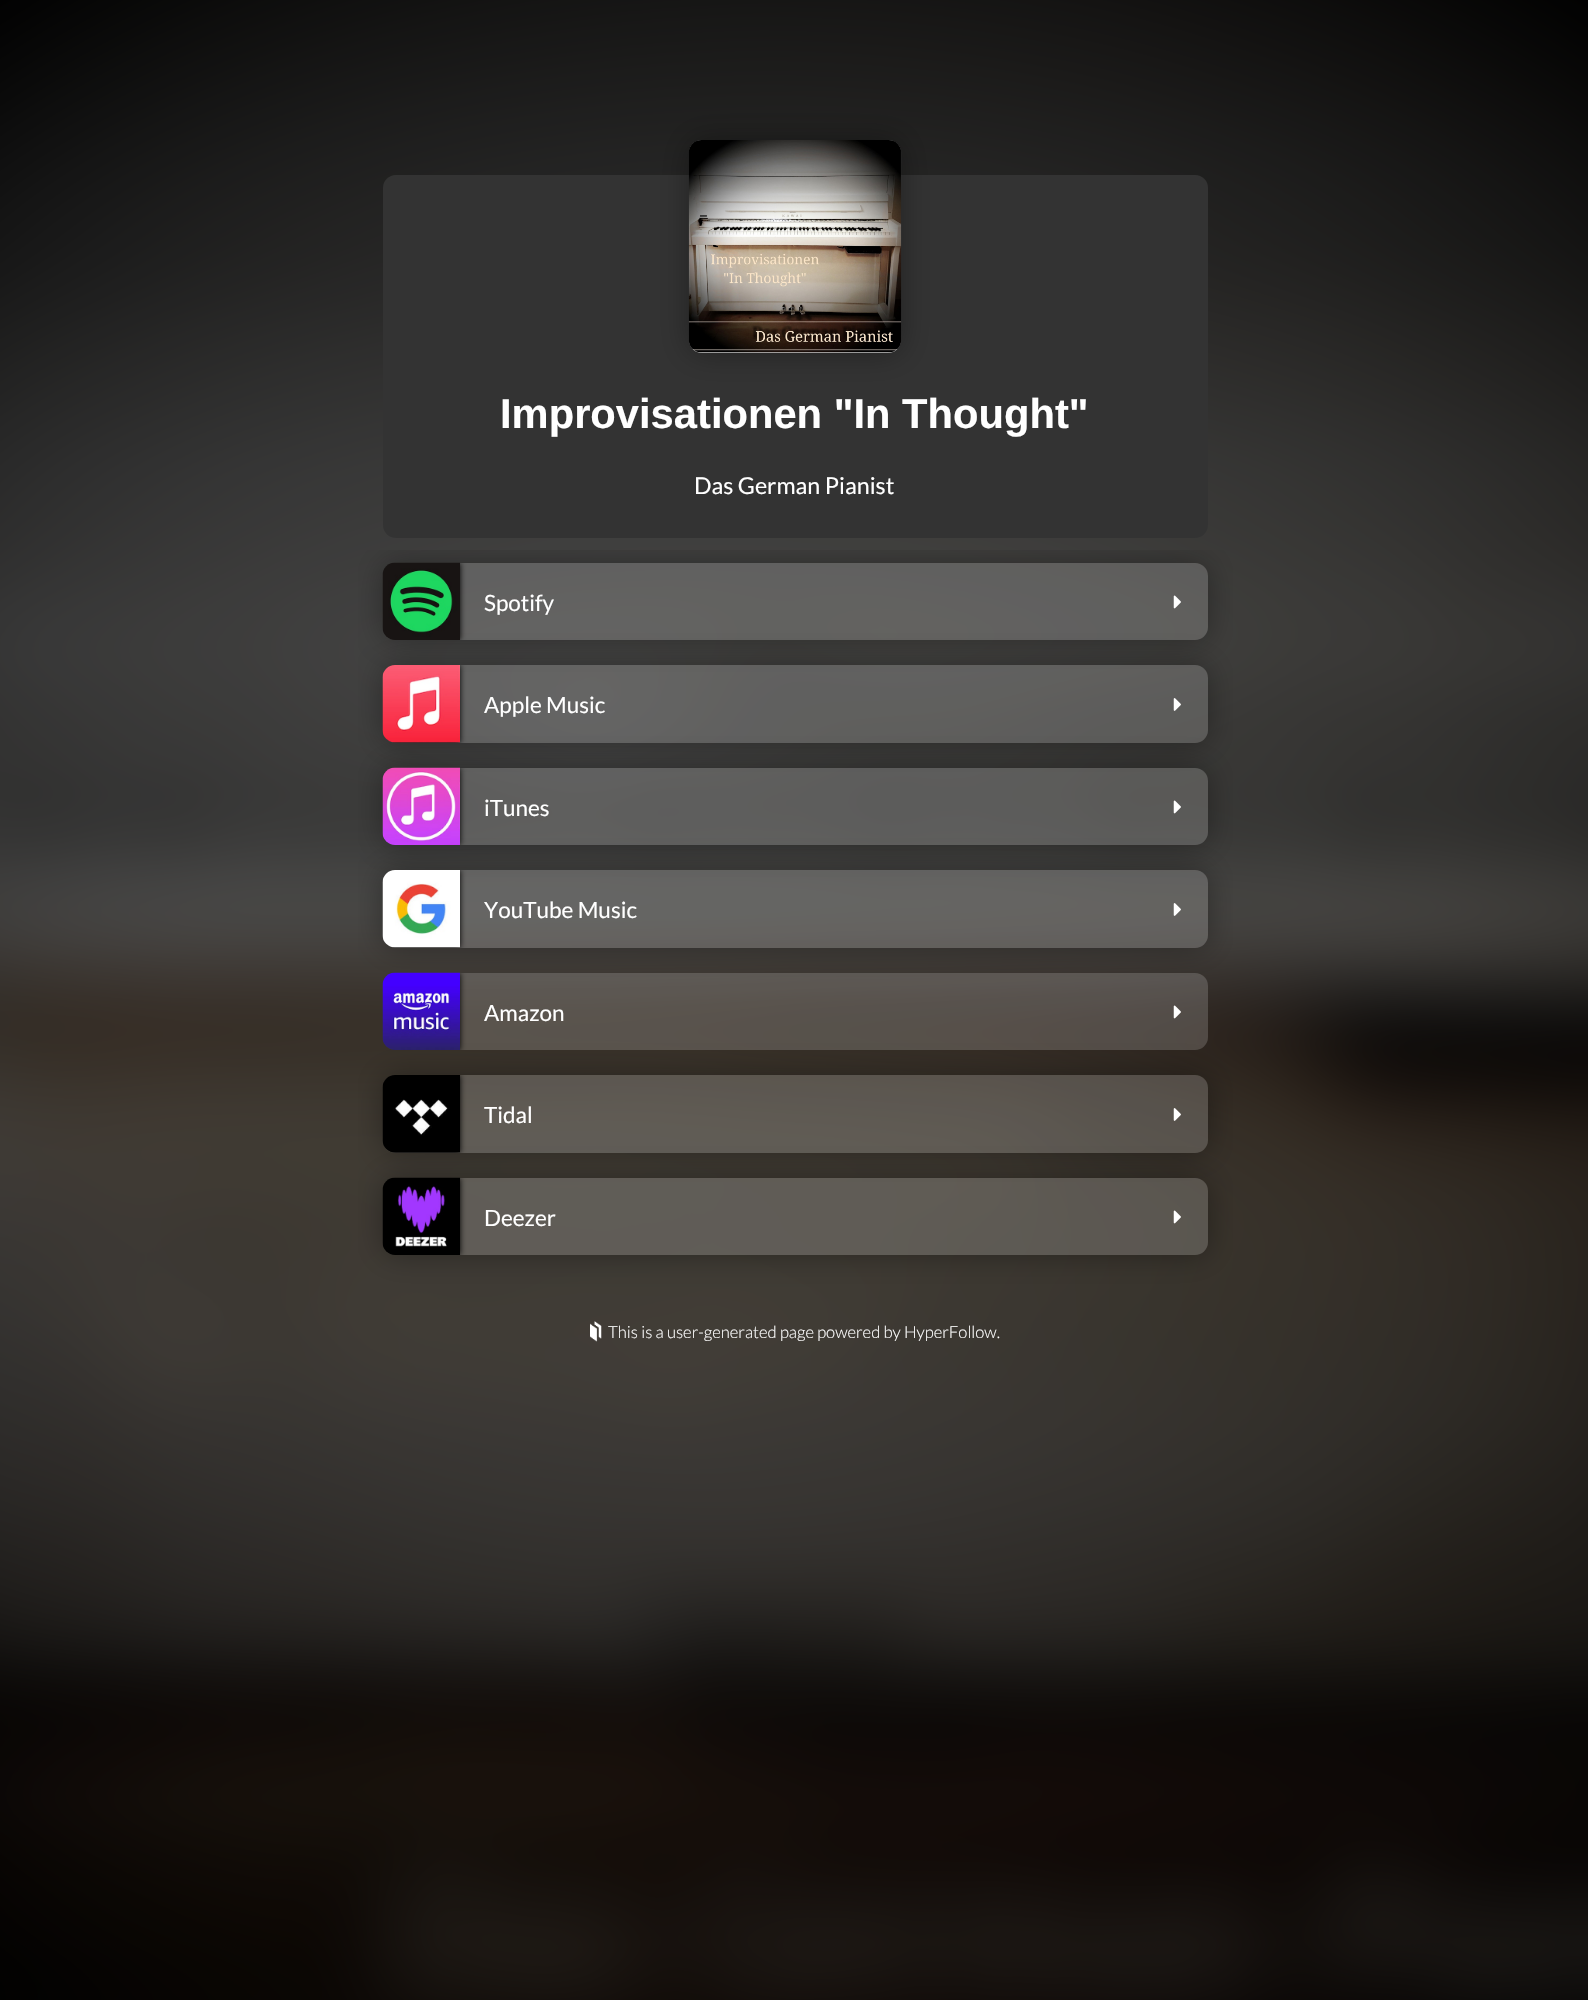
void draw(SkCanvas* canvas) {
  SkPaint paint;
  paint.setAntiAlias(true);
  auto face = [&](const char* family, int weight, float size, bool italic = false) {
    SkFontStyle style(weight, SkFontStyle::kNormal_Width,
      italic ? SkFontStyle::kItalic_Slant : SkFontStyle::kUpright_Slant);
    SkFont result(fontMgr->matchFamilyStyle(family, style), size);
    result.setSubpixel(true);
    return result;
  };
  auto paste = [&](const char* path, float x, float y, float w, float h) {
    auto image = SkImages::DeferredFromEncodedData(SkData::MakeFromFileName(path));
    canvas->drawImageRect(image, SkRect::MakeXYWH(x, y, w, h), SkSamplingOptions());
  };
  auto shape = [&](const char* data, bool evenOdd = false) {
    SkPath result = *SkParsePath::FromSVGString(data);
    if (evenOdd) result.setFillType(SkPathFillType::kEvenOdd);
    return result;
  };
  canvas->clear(0xff000000);
  paste("img/1.png", 0, 0, 1588, 2000);
  canvas->save();
  canvas->clipRect(SkRect::MakeXYWH(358, 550, 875, 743));
  canvas->clipPath(shape("M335 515H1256V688H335ZM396 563H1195C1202 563 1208 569 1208 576V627C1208 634 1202 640 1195 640H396C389 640 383 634 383 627V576C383 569 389 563 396 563Z", true), true);
  paint.setColor(0x59000000);
  paint.setMaskFilter(SkMaskFilter::MakeBlur(kNormal_SkBlurStyle, 15.5f));
  canvas->drawRoundRect(SkRect::MakeXYWH(383, 563, 825, 77), 13, 13, paint);
  paint.setMaskFilter(nullptr);
  canvas->restore();
  paint.setColor(0xff333333);
  canvas->drawRoundRect(SkRect::MakeXYWH(383, 175, 825, 363), 13, 13, paint);
  paint.setColor(0x59000000);
  paint.setMaskFilter(SkMaskFilter::MakeBlur(kNormal_SkBlurStyle, 15.5f));
  canvas->drawRoundRect(SkRect::MakeXYWH(689, 140, 212, 213), 13, 13, paint);
  paint.setMaskFilter(nullptr);
  paint.setColor(0xffcccccc);
  canvas->drawRoundRect(SkRect::MakeXYWH(689, 140, 212, 213), 13, 13, paint);
  paste("img/2.png", 688, 140, 214, 213);
  paint.setColor(0x2bffffff);
  canvas->drawRoundRect(SkRect::MakeXYWH(383, 563, 825, 77), 13, 13, paint);
  canvas->save();
  canvas->clipPath(shape("M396 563H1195C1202 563 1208 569 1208 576V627C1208 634 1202 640 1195 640H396C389 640 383 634 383 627V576C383 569 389 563 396 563Z"), true);
  paint.setColor(0xff000000);
  paint.setMaskFilter(SkMaskFilter::MakeBlur(kNormal_SkBlurStyle, 3));
  canvas->drawRect(SkRect::MakeXYWH(383, 563, 77, 77), paint);
  paint.setMaskFilter(nullptr);
  canvas->restore();
  paste("img/3.png", 382, 562, 78, 78);
  paste("img/4.png", 1173, 595, 8, 14);
  canvas->save();
  canvas->clipRect(SkRect::MakeXYWH(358, 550, 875, 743));
  canvas->clipPath(shape("M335 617H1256V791H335ZM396 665H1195C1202 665 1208 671 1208 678V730C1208 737 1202 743 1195 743H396C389 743 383 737 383 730V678C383 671 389 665 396 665Z", true), true);
  paint.setColor(0x59000000);
  paint.setMaskFilter(SkMaskFilter::MakeBlur(kNormal_SkBlurStyle, 15.5f));
  canvas->drawRoundRect(SkRect::MakeXYWH(383, 665, 825, 78), 13, 13, paint);
  paint.setMaskFilter(nullptr);
  canvas->restore();
  paint.setColor(0x2bffffff);
  canvas->drawRoundRect(SkRect::MakeXYWH(383, 665, 825, 78), 13, 13, paint);
  canvas->save();
  canvas->clipPath(shape("M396 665H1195C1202 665 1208 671 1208 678V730C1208 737 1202 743 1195 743H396C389 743 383 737 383 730V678C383 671 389 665 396 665Z"), true);
  paint.setColor(0xff000000);
  paint.setMaskFilter(SkMaskFilter::MakeBlur(kNormal_SkBlurStyle, 3));
  canvas->drawRect(SkRect::MakeXYWH(383, 665, 77, 78), paint);
  paint.setMaskFilter(nullptr);
  canvas->restore();
  paste("img/5.png", 382, 665, 78, 78);
  paste("img/6.png", 1173, 698, 8, 13);
  canvas->save();
  canvas->clipRect(SkRect::MakeXYWH(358, 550, 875, 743));
  canvas->clipPath(shape("M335 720H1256V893H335ZM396 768H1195C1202 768 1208 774 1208 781V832C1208 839 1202 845 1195 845H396C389 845 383 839 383 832V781C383 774 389 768 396 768Z", true), true);
  paint.setColor(0x59000000);
  paint.setMaskFilter(SkMaskFilter::MakeBlur(kNormal_SkBlurStyle, 15.5f));
  canvas->drawRoundRect(SkRect::MakeXYWH(383, 768, 825, 77), 13, 13, paint);
  paint.setMaskFilter(nullptr);
  canvas->restore();
  paint.setColor(0x2bffffff);
  canvas->drawRoundRect(SkRect::MakeXYWH(383, 768, 825, 77), 13, 13, paint);
  canvas->save();
  canvas->clipPath(shape("M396 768H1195C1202 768 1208 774 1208 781V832C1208 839 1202 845 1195 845H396C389 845 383 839 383 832V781C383 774 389 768 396 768Z"), true);
  paint.setColor(0xff000000);
  paint.setMaskFilter(SkMaskFilter::MakeBlur(kNormal_SkBlurStyle, 3));
  canvas->drawRect(SkRect::MakeXYWH(383, 768, 77, 77), paint);
  paint.setMaskFilter(nullptr);
  canvas->restore();
  paste("img/7.png", 382, 767, 78, 78);
  paste("img/8.png", 1173, 800, 8, 14);
  canvas->save();
  canvas->clipRect(SkRect::MakeXYWH(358, 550, 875, 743));
  canvas->clipPath(shape("M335 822H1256V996H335ZM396 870H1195C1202 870 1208 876 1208 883V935C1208 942 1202 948 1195 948H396C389 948 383 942 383 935V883C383 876 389 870 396 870Z", true), true);
  paint.setColor(0x59000000);
  paint.setMaskFilter(SkMaskFilter::MakeBlur(kNormal_SkBlurStyle, 15.5f));
  canvas->drawRoundRect(SkRect::MakeXYWH(383, 870, 825, 78), 13, 13, paint);
  paint.setMaskFilter(nullptr);
  canvas->restore();
  paint.setColor(0x2bffffff);
  canvas->drawRoundRect(SkRect::MakeXYWH(383, 870, 825, 78), 13, 13, paint);
  canvas->save();
  canvas->clipPath(shape("M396 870H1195C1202 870 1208 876 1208 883V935C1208 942 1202 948 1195 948H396C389 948 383 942 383 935V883C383 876 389 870 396 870Z"), true);
  paint.setColor(0xff000000);
  paint.setMaskFilter(SkMaskFilter::MakeBlur(kNormal_SkBlurStyle, 3));
  canvas->drawRect(SkRect::MakeXYWH(383, 870, 77, 78), paint);
  paint.setMaskFilter(nullptr);
  canvas->restore();
  paste("img/9.png", 382, 870, 78, 78);
  paste("img/10.png", 1173, 903, 8, 13);
  paint.setColor(0x2bffffff);
  canvas->drawRoundRect(SkRect::MakeXYWH(383, 973, 825, 77), 13, 13, paint);
  canvas->save();
  canvas->clipPath(shape("M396 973H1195C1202 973 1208 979 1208 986V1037C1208 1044 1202 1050 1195 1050H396C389 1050 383 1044 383 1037V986C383 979 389 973 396 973Z"), true);
  paint.setColor(0xff000000);
  paint.setMaskFilter(SkMaskFilter::MakeBlur(kNormal_SkBlurStyle, 3));
  canvas->drawRect(SkRect::MakeXYWH(383, 973, 77, 77), paint);
  paint.setMaskFilter(nullptr);
  canvas->restore();
  paste("img/11.png", 382, 972, 78, 78);
  paste("img/12.png", 1173, 1005, 8, 14);
  canvas->save();
  canvas->clipRect(SkRect::MakeXYWH(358, 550, 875, 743));
  canvas->clipPath(shape("M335 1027H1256V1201H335ZM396 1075H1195C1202 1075 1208 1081 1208 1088V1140C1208 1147 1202 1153 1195 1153H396C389 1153 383 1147 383 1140V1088C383 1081 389 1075 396 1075Z", true), true);
  paint.setColor(0x59000000);
  paint.setMaskFilter(SkMaskFilter::MakeBlur(kNormal_SkBlurStyle, 15.5f));
  canvas->drawRoundRect(SkRect::MakeXYWH(383, 1075, 825, 78), 13, 13, paint);
  paint.setMaskFilter(nullptr);
  canvas->restore();
  paint.setColor(0x2bffffff);
  canvas->drawRoundRect(SkRect::MakeXYWH(383, 1075, 825, 78), 13, 13, paint);
  canvas->save();
  canvas->clipPath(shape("M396 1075H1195C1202 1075 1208 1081 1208 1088V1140C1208 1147 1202 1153 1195 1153H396C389 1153 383 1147 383 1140V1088C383 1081 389 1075 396 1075Z"), true);
  paint.setColor(0xff000000);
  paint.setMaskFilter(SkMaskFilter::MakeBlur(kNormal_SkBlurStyle, 3));
  canvas->drawRect(SkRect::MakeXYWH(383, 1075, 77, 78), paint);
  paint.setMaskFilter(nullptr);
  canvas->restore();
  paste("img/13.png", 382, 1075, 78, 78);
  paste("img/14.png", 1173, 1108, 8, 13);
  canvas->save();
  canvas->clipRect(SkRect::MakeXYWH(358, 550, 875, 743));
  canvas->clipPath(shape("M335 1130H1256V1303H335ZM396 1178H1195C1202 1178 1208 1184 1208 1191V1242C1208 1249 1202 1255 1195 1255H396C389 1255 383 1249 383 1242V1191C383 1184 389 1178 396 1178Z", true), true);
  paint.setColor(0x59000000);
  paint.setMaskFilter(SkMaskFilter::MakeBlur(kNormal_SkBlurStyle, 15.5f));
  canvas->drawRoundRect(SkRect::MakeXYWH(383, 1178, 825, 77), 13, 13, paint);
  paint.setMaskFilter(nullptr);
  canvas->restore();
  paint.setColor(0x2bffffff);
  canvas->drawRoundRect(SkRect::MakeXYWH(383, 1178, 825, 77), 13, 13, paint);
  canvas->save();
  canvas->clipPath(shape("M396 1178H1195C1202 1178 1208 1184 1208 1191V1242C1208 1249 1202 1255 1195 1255H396C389 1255 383 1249 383 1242V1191C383 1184 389 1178 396 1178Z"), true);
  paint.setColor(0xff000000);
  paint.setMaskFilter(SkMaskFilter::MakeBlur(kNormal_SkBlurStyle, 3));
  canvas->drawRect(SkRect::MakeXYWH(383, 1178, 77, 77), paint);
  paint.setMaskFilter(nullptr);
  canvas->restore();
  paste("img/15.png", 382, 1177, 78, 78);
  paste("img/16.png", 1173, 1210, 8, 14);
  paste("img/17.png", 590, 1321, 12, 21);
  auto f0 = face("Liberation Sans", 700, 41.7f);
  paint.setColor(0xffffffff);
  canvas->drawString("Improvisationen \"In Thought\"", 500, 428, f0, paint);
  auto f1 = face("Lato", 400, 23.25f);
  canvas->drawString("Das German Pianist", 694, 494, f1, paint);
  auto f2 = face("Lato", 400, 22.5f);
  {
    const struct { const char* s; float x, y; } items[] = {
      {"Spotify", 484, 611},
      {"Apple Music", 484, 713},
      {"iTunes", 484, 816},
      {"YouTube Music", 484, 918},
      {"Amazon", 484, 1021},
      {"Tidal", 484, 1123},
      {"Deezer", 484, 1226},
    };
    for (auto [s, x, y] : items) {
      canvas->drawString(s, x, y, f2, paint);
    }
  }
  auto f3 = face("Lato", 300, 16.7f);
  canvas->drawString("This is a user-generated page powered by HyperFollow.", 608, 1338, f3, paint);
}
